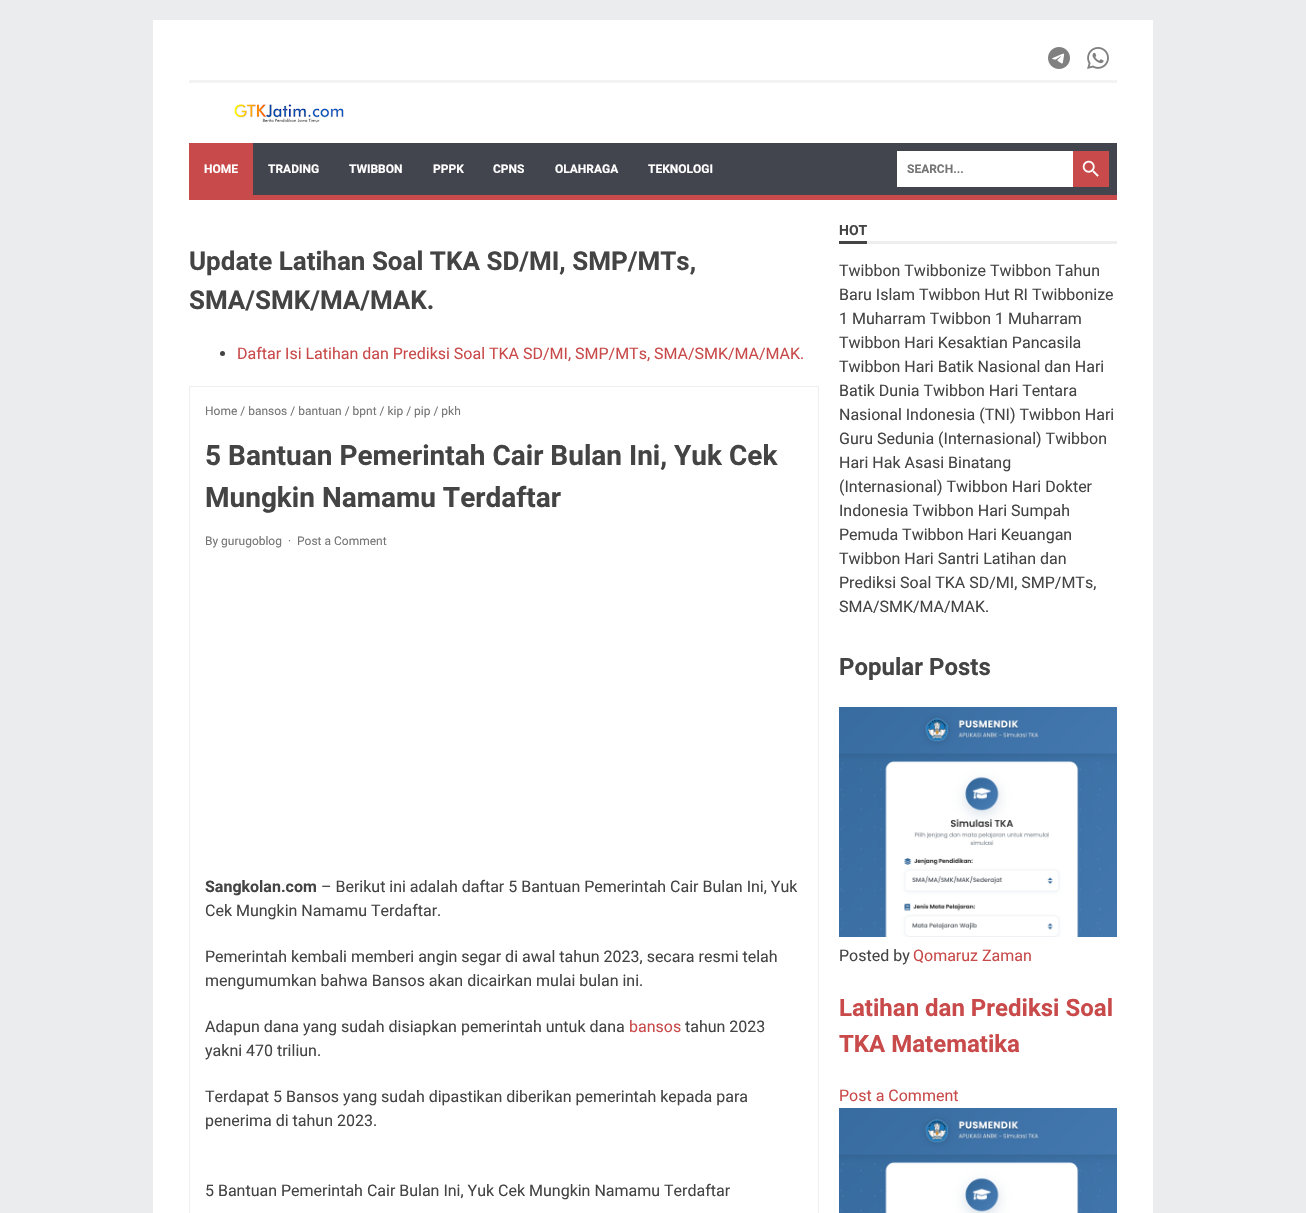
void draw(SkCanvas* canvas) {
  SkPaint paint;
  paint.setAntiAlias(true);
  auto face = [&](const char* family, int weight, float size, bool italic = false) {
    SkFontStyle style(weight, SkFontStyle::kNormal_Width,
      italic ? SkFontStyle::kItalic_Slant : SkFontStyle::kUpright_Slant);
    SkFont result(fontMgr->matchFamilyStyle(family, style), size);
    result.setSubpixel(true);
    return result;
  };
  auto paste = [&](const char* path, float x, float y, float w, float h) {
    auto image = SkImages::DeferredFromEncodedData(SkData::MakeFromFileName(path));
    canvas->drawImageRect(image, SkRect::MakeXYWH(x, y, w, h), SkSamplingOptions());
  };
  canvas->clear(0xffeaeced);
  paint.setColor(0xffffffff);
  canvas->drawRect(SkRect::MakeXYWH(153, 20, 1000, 1193), paint);
  paint.setColor(0xfff3f3f3);
  canvas->drawRect(SkRect::MakeXYWH(189, 80, 928, 3), paint);
  paste("img/1.png", 1048, 47, 22, 22);
  paste("img/2.png", 1087, 47, 22, 22);
  paste("img/3.png", 234, 104, 110, 19);
  {
    const struct { float x, y, w, h; SkColor color; } items[] = {
      {253, 143, 864, 52, 0xff42454e},
      {189, 143, 64, 52, 0xffc94a4a},
      {897, 151, 176, 36, 0xffffffff},
      {1073, 151, 36, 36, 0xffc94a4a},
    };
    for (auto [x, y, w, h, color] : items) {
      paint.setColor(color);
      canvas->drawRect(SkRect::MakeXYWH(x, y, w, h), paint);
    }
  }
  paste("img/4.png", 1082, 160, 17, 17);
  canvas->drawRect(SkRect::MakeXYWH(189, 195, 928, 5), paint);
  paint.setColor(0xff444444);
  canvas->drawCircle(222.5f, 353.5f, 2.5f, paint);
  paint.setStroke(true);
  paint.setStrokeWidth(1);
  paint.setColor(0xffeeeeee);
  canvas->drawRect(SkRect::MakeXYWH(189.5f, 386.5f, 629, 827), paint);
  paint.setStroke(false);
  canvas->drawRect(SkRect::MakeXYWH(867, 241, 250, 3), paint);
  paint.setColor(0xff444444);
  canvas->drawRect(SkRect::MakeXYWH(839, 241, 28, 3), paint);
  paste("img/5.png", 839, 707, 278, 230);
  paste("img/6.png", 839, 1108, 278, 105);
  auto f0 = face("Roboto", 700, 12);
  paint.setColor(0xffffffff);
  {
    const struct { const char* s; float x, y; } items[] = {
      {"HOME", 204, 173},
      {"TRADING", 268, 173},
      {"TWIBBON", 349, 173},
      {"PPPK", 433, 173},
      {"CPNS", 493, 173},
      {"OLAHRAGA", 555, 173},
      {"TEKNOLOGI", 648, 173},
    };
    for (auto [s, x, y] : items) {
      canvas->drawString(s, x, y, f0, paint);
    }
  }
  paint.setColor(0xff757575);
  canvas->drawString("SEARCH...", 907, 173, f0, paint);
  auto f1 = face("Roboto", 700, 26);
  paint.setColor(0xff444444);
  canvas->drawString("Update Latihan Soal TKA SD/MI, SMP/MTs,", 189, 270, f1, paint);
  canvas->drawString("SMA/SMK/MA/MAK.", 189, 309, f1, paint);
  auto f2 = face("Roboto", 400, 16);
  paint.setColor(0xffc94a4a);
  canvas->drawString("Daftar Isi Latihan dan Prediksi Soal TKA SD/MI, SMP/MTs, SMA/SMK/MA/MAK.", 237, 359, f2, paint);
  auto f3 = face("Roboto", 400, 12);
  paint.setColor(0xff757575);
  canvas->drawString("Home / bansos / bantuan / bpnt / kip / pip / pkh", 205, 415, f3, paint);
  auto f4 = face("Roboto", 700, 28);
  paint.setColor(0xff444444);
  canvas->drawString("5 Bantuan Pemerintah Cair Bulan Ini, Yuk Cek", 205, 465, f4, paint);
  canvas->drawString("Mungkin Namamu Terdaftar", 205, 507, f4, paint);
  paint.setColor(0xff757575);
  {
    const struct { const char* s; float x, y; } items[] = {
      {"By gurugoblog", 205, 545},
      {"·", 288, 545},
      {"Post a Comment", 297, 545},
    };
    for (auto [s, x, y] : items) {
      canvas->drawString(s, x, y, f3, paint);
    }
  }
  auto f5 = face("Roboto", 700, 16);
  paint.setColor(0xff444444);
  canvas->drawString("Sangkolan.com", 205, 892, f5, paint);
  {
    const struct { const char* s; float x, y; } items[] = {
      {"– Berikut ini adalah daftar 5 Bantuan Pemerintah Cair Bulan Ini, Yuk", 321, 892},
      {"Cek Mungkin Namamu Terdaftar.", 205, 916},
      {"Pemerintah kembali memberi angin segar di awal tahun 2023, secara resmi telah", 205, 962},
      {"mengumumkan bahwa Bansos akan dicairkan mulai bulan ini.", 205, 986},
      {"Adapun dana yang sudah disiapkan pemerintah untuk dana", 205, 1032},
    };
    for (auto [s, x, y] : items) {
      canvas->drawString(s, x, y, f2, paint);
    }
  }
  paint.setColor(0xffc94a4a);
  canvas->drawString("bansos", 629, 1032, f2, paint);
  paint.setColor(0xff444444);
  {
    const struct { const char* s; float x, y; } items[] = {
      {"tahun 2023", 685, 1032},
      {"yakni 470 triliun.", 205, 1056},
      {"Terdapat 5 Bansos yang sudah dipastikan diberikan pemerintah kepada para", 205, 1102},
      {"penerima di tahun 2023.", 205, 1126},
      {"5 Bantuan Pemerintah Cair Bulan Ini, Yuk Cek Mungkin Namamu Terdaftar", 205, 1196},
    };
    for (auto [s, x, y] : items) {
      canvas->drawString(s, x, y, f2, paint);
    }
  }
  auto f6 = face("Roboto", 700, 14);
  canvas->drawString("HOT", 839, 235, f6, paint);
  {
    const struct { const char* s; float x, y; } items[] = {
      {"Twibbon Twibbonize Twibbon Tahun", 839, 276},
      {"Baru Islam Twibbon Hut RI Twibbonize", 839, 300},
      {"1 Muharram Twibbon 1 Muharram", 839, 324},
      {"Twibbon Hari Kesaktian Pancasila", 839, 348},
      {"Twibbon Hari Batik Nasional dan Hari", 839, 372},
      {"Batik Dunia Twibbon Hari Tentara", 839, 396},
      {"Nasional Indonesia (TNI) Twibbon Hari", 839, 420},
      {"Guru Sedunia (Internasional) Twibbon", 839, 444},
      {"Hari Hak Asasi Binatang", 839, 468},
      {"(Internasional) Twibbon Hari Dokter", 839, 492},
      {"Indonesia Twibbon Hari Sumpah", 839, 516},
      {"Pemuda Twibbon Hari Keuangan", 839, 540},
      {"Twibbon Hari Santri Latihan dan", 839, 564},
      {"Prediksi Soal TKA SD/MI, SMP/MTs,", 839, 588},
      {"SMA/SMK/MA/MAK.", 839, 612},
    };
    for (auto [s, x, y] : items) {
      canvas->drawString(s, x, y, f2, paint);
    }
  }
  auto f7 = face("Roboto", 700, 24);
  canvas->drawString("Popular Posts", 839, 675, f7, paint);
  canvas->drawString("Posted by", 839, 961, f2, paint);
  paint.setColor(0xffc94a4a);
  canvas->drawString("Qomaruz Zaman", 913, 961, f2, paint);
  canvas->drawString("Latihan dan Prediksi Soal", 839, 1016, f7, paint);
  canvas->drawString("TKA Matematika", 839, 1052, f7, paint);
  canvas->drawString("Post a Comment", 839, 1101, f2, paint);
}
